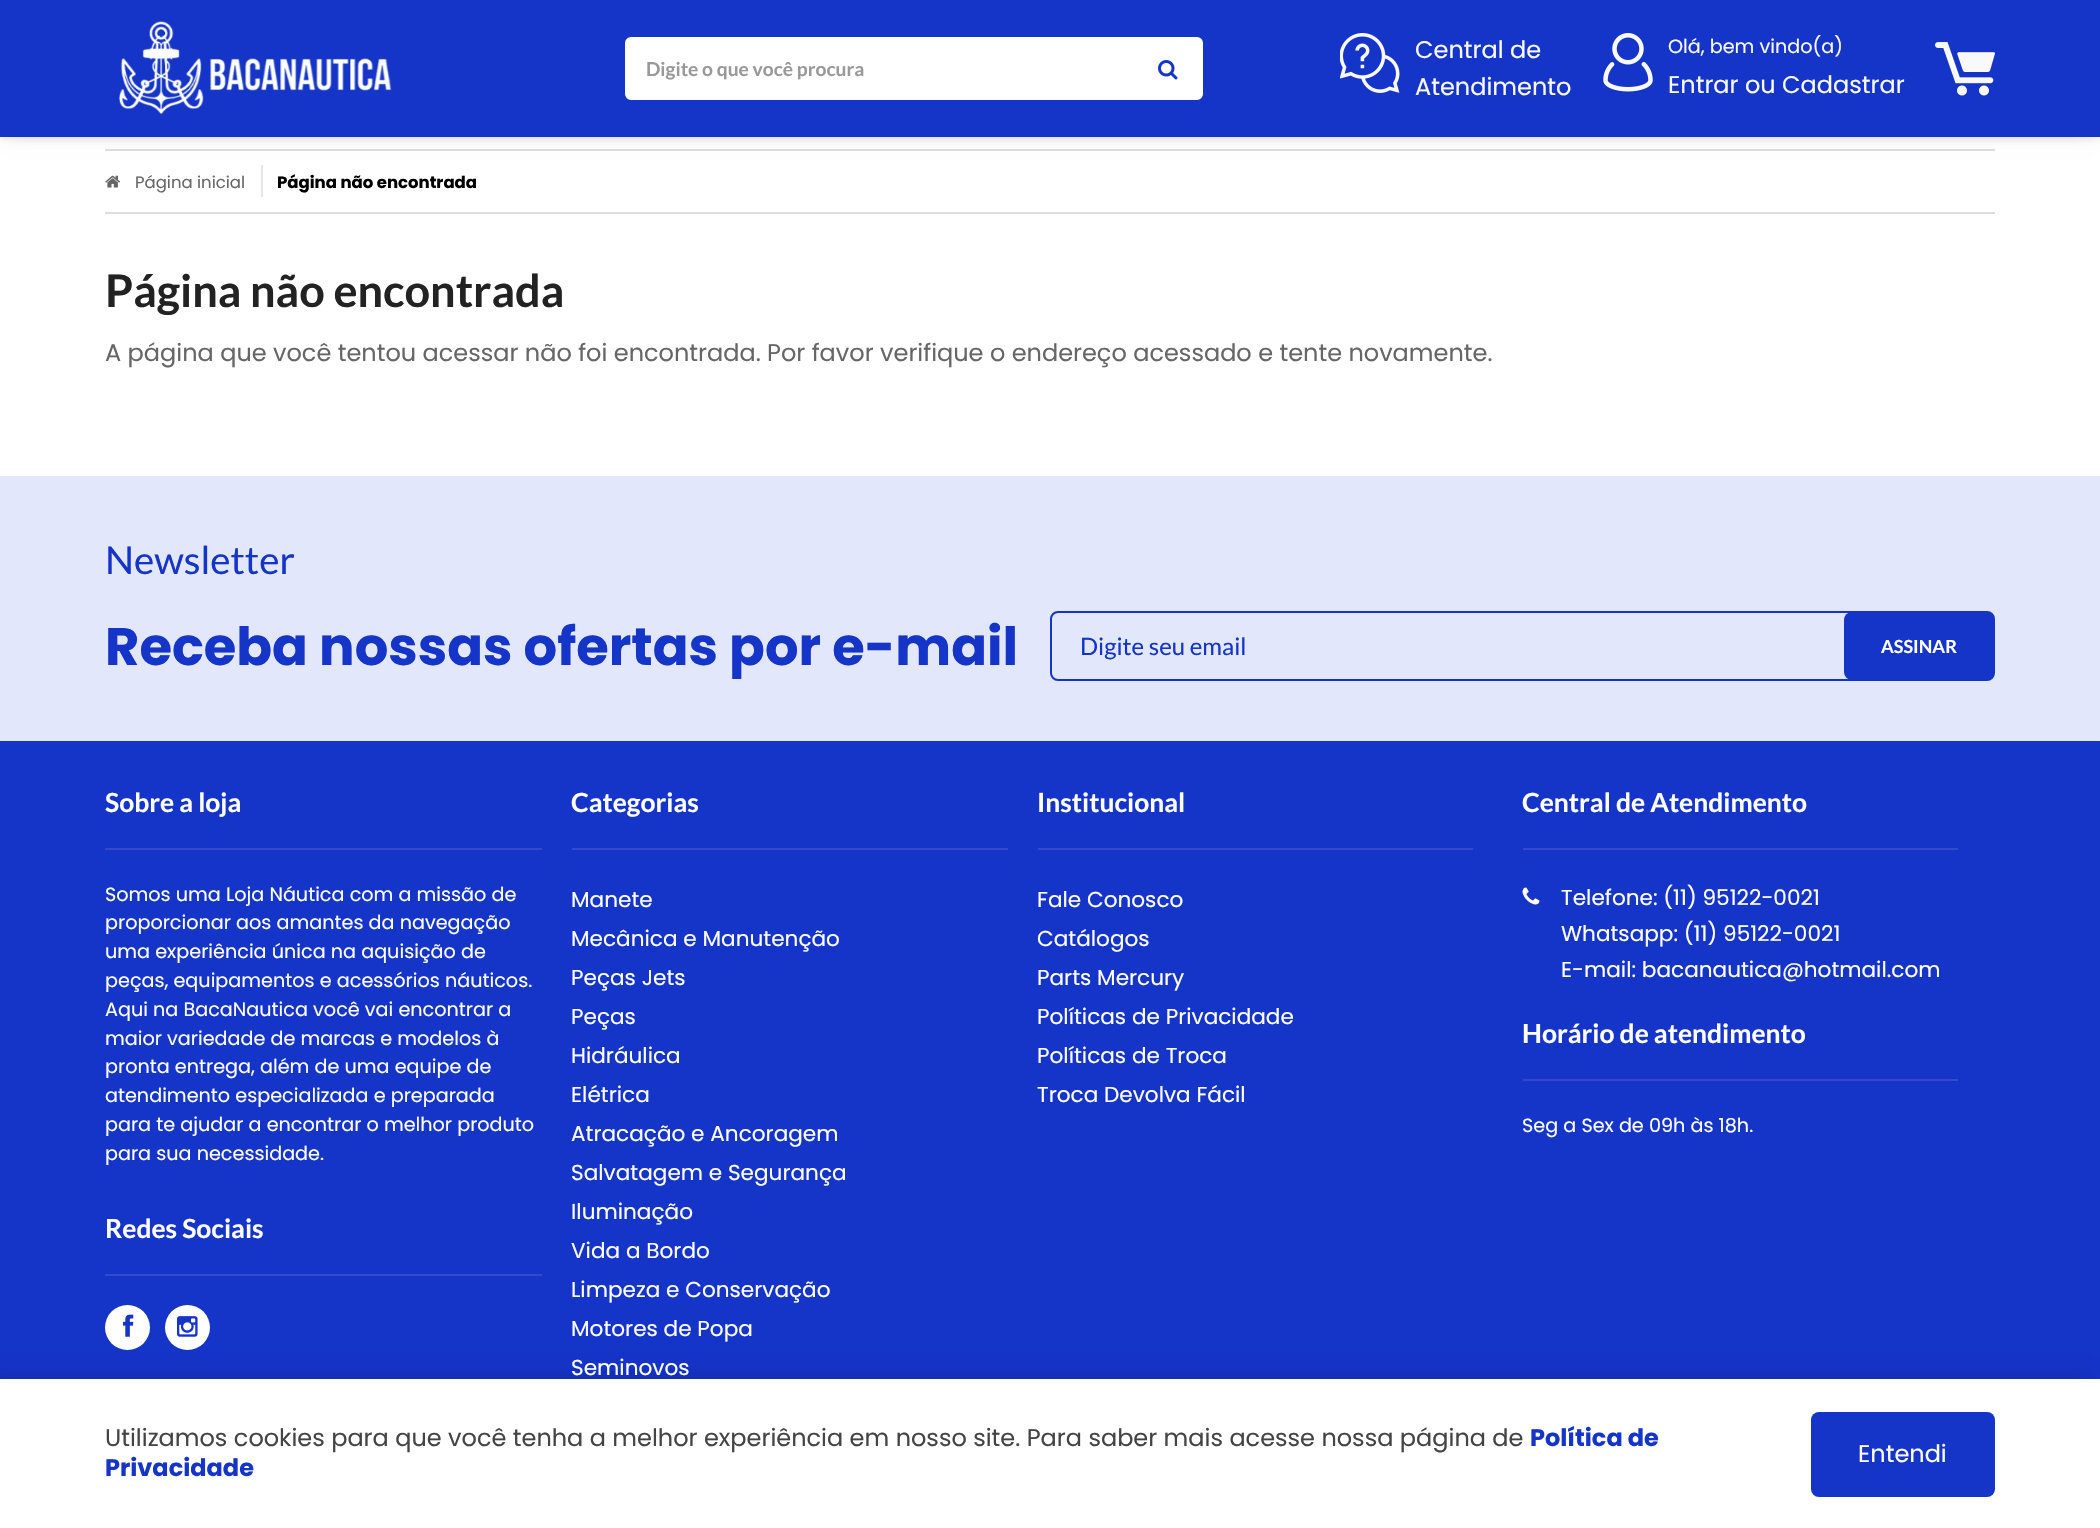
void draw(SkCanvas* canvas) {
  SkPaint paint;
  paint.setAntiAlias(true);
  auto face = [&](const char* family, int weight, float size, bool italic = false) {
    SkFontStyle style(weight, SkFontStyle::kNormal_Width,
      italic ? SkFontStyle::kItalic_Slant : SkFontStyle::kUpright_Slant);
    SkFont result(fontMgr->matchFamilyStyle(family, style), size);
    result.setSubpixel(true);
    return result;
  };
  auto paste = [&](const char* path, float x, float y, float w, float h) {
    auto image = SkImages::DeferredFromEncodedData(SkData::MakeFromFileName(path));
    canvas->drawImageRect(image, SkRect::MakeXYWH(x, y, w, h), SkSamplingOptions());
  };
  canvas->clear(0xffffffff);
  paint.setColor(0xffdddddd);
  paint.setMaskFilter(SkMaskFilter::MakeBlur(kNormal_SkBlurStyle, 9));
  canvas->drawRect(SkRect::MakeXYWH(9, 47, 2082, 85), paint);
  paint.setMaskFilter(nullptr);
  canvas->drawRect(SkRect::MakeXYWH(105, 149, 1890, 2), paint);
  paint.setColor(0x1a000000);
  paint.setMaskFilter(SkMaskFilter::MakeBlur(kNormal_SkBlurStyle, 4));
  canvas->drawRect(SkRect::MakeXYWH(0, 2, 2100, 136), paint);
  paint.setMaskFilter(nullptr);
  paint.setColor(0xff1534c8);
  canvas->drawRect(SkRect::MakeXYWH(0, 0, 2100, 137), paint);
  paste("img/1.png", 119, 21, 273, 93);
  paint.setColor(0xffffffff);
  canvas->drawRoundRect(SkRect::MakeXYWH(624, 36, 580, 65), 7, 7, paint);
  paint.setStroke(true);
  paint.setStrokeWidth(2);
  paint.setColor(0xff1534c8);
  canvas->drawRoundRect(SkRect::MakeXYWH(624, 36, 580, 65), 7, 7, paint);
  paste("img/2.png", 1158, 60, 20, 20);
  paste("img/3.png", 1340, 33, 60, 60);
  paste("img/4.png", 1603, 33, 50, 59);
  paste("img/5.png", 1935, 42, 60, 54);
  paint.setStroke(false);
  paint.setColor(0xffdedede);
  canvas->drawRect(SkRect::MakeXYWH(105, 212, 1890, 2), paint);
  paste("img/6.png", 105, 175, 15, 13);
  paint.setColor(0xffe6e6e6);
  canvas->drawRect(SkRect::MakeXYWH(261, 165, 2, 32), paint);
  paint.setColor(0xffe3e7fb);
  canvas->drawRect(SkRect::MakeXYWH(0, 476, 2100, 265), paint);
  paint.setStroke(true);
  paint.setColor(0xff1534c8);
  canvas->drawRoundRect(SkRect::MakeXYWH(1051, 612, 943, 68), 7, 7, paint);
  paint.setStroke(false);
  canvas->drawRoundRect(SkRect::MakeXYWH(1844, 612, 150, 68), 8, 8, paint);
  {
    const struct { float x, y, w, h; SkColor color; } items[] = {
      {0, 741, 2100, 638, 0xff1534c8},
      {105, 848, 437, 2, 0xff3549ce},
      {105, 1274, 437, 2, 0xff3549ce},
    };
    for (auto [x, y, w, h, color] : items) {
      paint.setColor(color);
      canvas->drawRect(SkRect::MakeXYWH(x, y, w, h), paint);
    }
  }
  paint.setColor(0xffffffff);
  canvas->drawCircle(127.5f, 1327.5f, 22.5f, paint);
  paste("img/7.png", 123, 1314, 11, 23);
  canvas->drawCircle(187.5f, 1327.5f, 22.5f, paint);
  paste("img/8.png", 177, 1316, 21, 21);
  {
    const struct { float x, y, w, h; SkColor color; } items[] = {
      {572, 848, 436, 2, 0xff3549ce},
      {1038, 848, 435, 2, 0xff3549ce},
      {1523, 848, 435, 2, 0xff3549ce},
    };
    for (auto [x, y, w, h, color] : items) {
      paint.setColor(color);
      canvas->drawRect(SkRect::MakeXYWH(x, y, w, h), paint);
    }
  }
  paste("img/9.png", 1522, 887, 18, 18);
  canvas->drawRect(SkRect::MakeXYWH(1523, 1079, 435, 2), paint);
  paint.setColor(0x33000000);
  paint.setMaskFilter(SkMaskFilter::MakeBlur(kNormal_SkBlurStyle, 9));
  canvas->drawRect(SkRect::MakeXYWH(-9, 1379, 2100, 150), paint);
  paint.setMaskFilter(nullptr);
  paint.setColor(0xffffffff);
  canvas->drawRect(SkRect::MakeXYWH(0, 1379, 2100, 149), paint);
  paint.setColor(0xff1534c8);
  canvas->drawRoundRect(SkRect::MakeXYWH(1811, 1412, 184, 85), 8, 8, paint);
  auto f0 = face("Lato", 700, 19.2f);
  paint.setColor(0xff999999);
  canvas->drawString("Digite o que você procura", 646, 76, f0, paint);
  auto f1 = face("Poppins", 400, 24);
  paint.setColor(0xfff9f9f9);
  canvas->drawString("Central de", 1415, 58, f1, paint);
  canvas->drawString("Atendimento", 1415, 95, f1, paint);
  auto f2 = face("Poppins", 400, 19.2f);
  canvas->drawString("Olá, bem vindo(a)", 1668, 53, f2, paint);
  canvas->drawString("Entrar ou Cadastrar", 1668, 93, f1, paint);
  auto f3 = face("Poppins", 400, 16.5f);
  paint.setColor(0xff666666);
  canvas->drawString("Página inicial", 135, 188, f3, paint);
  auto f4 = face("Poppins", 700, 16.5f);
  paint.setColor(0xff000000);
  canvas->drawString("Página não encontrada", 277, 188, f4, paint);
  auto f5 = face("Lato", 700, 45);
  paint.setColor(0xff222222);
  canvas->drawString("Página não encontrada", 105, 307, f5, paint);
  paint.setColor(0xff666666);
  canvas->drawString("A página que você tentou acessar não foi encontrada. Por favor verifique o endereço acessado e tente novamente.", 105, 361, f1, paint);
  auto f6 = face("Lato", 400, 38.5f);
  paint.setColor(0xff1534c8);
  canvas->drawString("Newsletter", 105, 574, f6, paint);
  auto f7 = face("Poppins", 700, 52.75f);
  canvas->drawString("Receba nossas ofertas por e-mail", 105, 665, f7, paint);
  auto f8 = face("Lato", 400, 24);
  canvas->drawString("Digite seu email", 1080, 655, f8, paint);
  auto f9 = face("Lato", 700, 18);
  paint.setColor(0xffffffff);
  canvas->drawString("ASSINAR", 1881, 653, f9, paint);
  auto f10 = face("Lato", 700, 26.4f);
  canvas->drawString("Sobre a loja", 105, 812, f10, paint);
  {
    const struct { const char* s; float x, y; } items[] = {
      {"Somos uma Loja Náutica com a missão de", 105, 901},
      {"proporcionar aos amantes da navegação", 105, 929},
      {"uma experiência única na aquisição de", 105, 958},
      {"peças, equipamentos e acessórios náuticos.", 105, 987},
      {"Aqui na BacaNautica você vai encontrar a", 105, 1016},
      {"maior variedade de marcas e modelos à", 105, 1045},
      {"pronta entrega, além de uma equipe de", 105, 1073},
      {"atendimento especializada e preparada", 105, 1102},
      {"para te ajudar a encontrar o melhor produto", 105, 1131},
      {"para sua necessidade.", 105, 1160},
    };
    for (auto [s, x, y] : items) {
      canvas->drawString(s, x, y, f2, paint);
    }
  }
  canvas->drawString("Redes Sociais", 105, 1238, f10, paint);
  canvas->drawString("Categorias", 571, 812, f10, paint);
  auto f11 = face("Poppins", 400, 21.6f);
  {
    const struct { const char* s; float x, y; } items[] = {
      {"Manete", 571, 907},
      {"Mecânica e Manutenção", 571, 946},
      {"Peças Jets", 571, 985},
      {"Peças", 571, 1024},
      {"Hidráulica", 571, 1063},
      {"Elétrica", 571, 1102},
      {"Atracação e Ancoragem", 571, 1141},
      {"Salvatagem e Segurança", 571, 1180},
      {"Iluminação", 571, 1219},
      {"Vida a Bordo", 571, 1258},
      {"Limpeza e Conservação", 571, 1297},
      {"Motores de Popa", 571, 1336},
      {"Seminovos", 571, 1375},
    };
    for (auto [s, x, y] : items) {
      canvas->drawString(s, x, y, f11, paint);
    }
  }
  canvas->drawString("Institucional", 1037, 812, f10, paint);
  {
    const struct { const char* s; float x, y; } items[] = {
      {"Fale Conosco", 1037, 907},
      {"Catálogos", 1037, 946},
      {"Parts Mercury", 1037, 985},
      {"Políticas de Privacidade", 1037, 1024},
      {"Políticas de Troca", 1037, 1063},
      {"Troca Devolva Fácil", 1037, 1102},
    };
    for (auto [s, x, y] : items) {
      canvas->drawString(s, x, y, f11, paint);
    }
  }
  canvas->drawString("Central de Atendimento", 1522, 812, f10, paint);
  {
    const struct { const char* s; float x, y; } items[] = {
      {"Telefone: (11) 95122-0021", 1561, 905},
      {"Whatsapp: (11) 95122-0021", 1561, 941},
      {"E-mail: bacanautica@hotmail.com", 1561, 977},
    };
    for (auto [s, x, y] : items) {
      canvas->drawString(s, x, y, f11, paint);
    }
  }
  canvas->drawString("Horário de atendimento", 1522, 1043, f10, paint);
  canvas->drawString("Seg a Sex de 09h às 18h.", 1522, 1132, f2, paint);
  paint.setColor(0xff444444);
  canvas->drawString("Utilizamos cookies para que você tenha a melhor experiência em nosso site. Para saber mais acesse nossa página de", 105, 1446, f1, paint);
  auto f12 = face("Poppins", 700, 24);
  paint.setColor(0xff1534c8);
  canvas->drawString("Política de", 1530, 1446, f12, paint);
  canvas->drawString("Privacidade", 105, 1476, f12, paint);
  paint.setColor(0xffffffff);
  canvas->drawString("Entendi", 1858, 1462, f1, paint);
}
